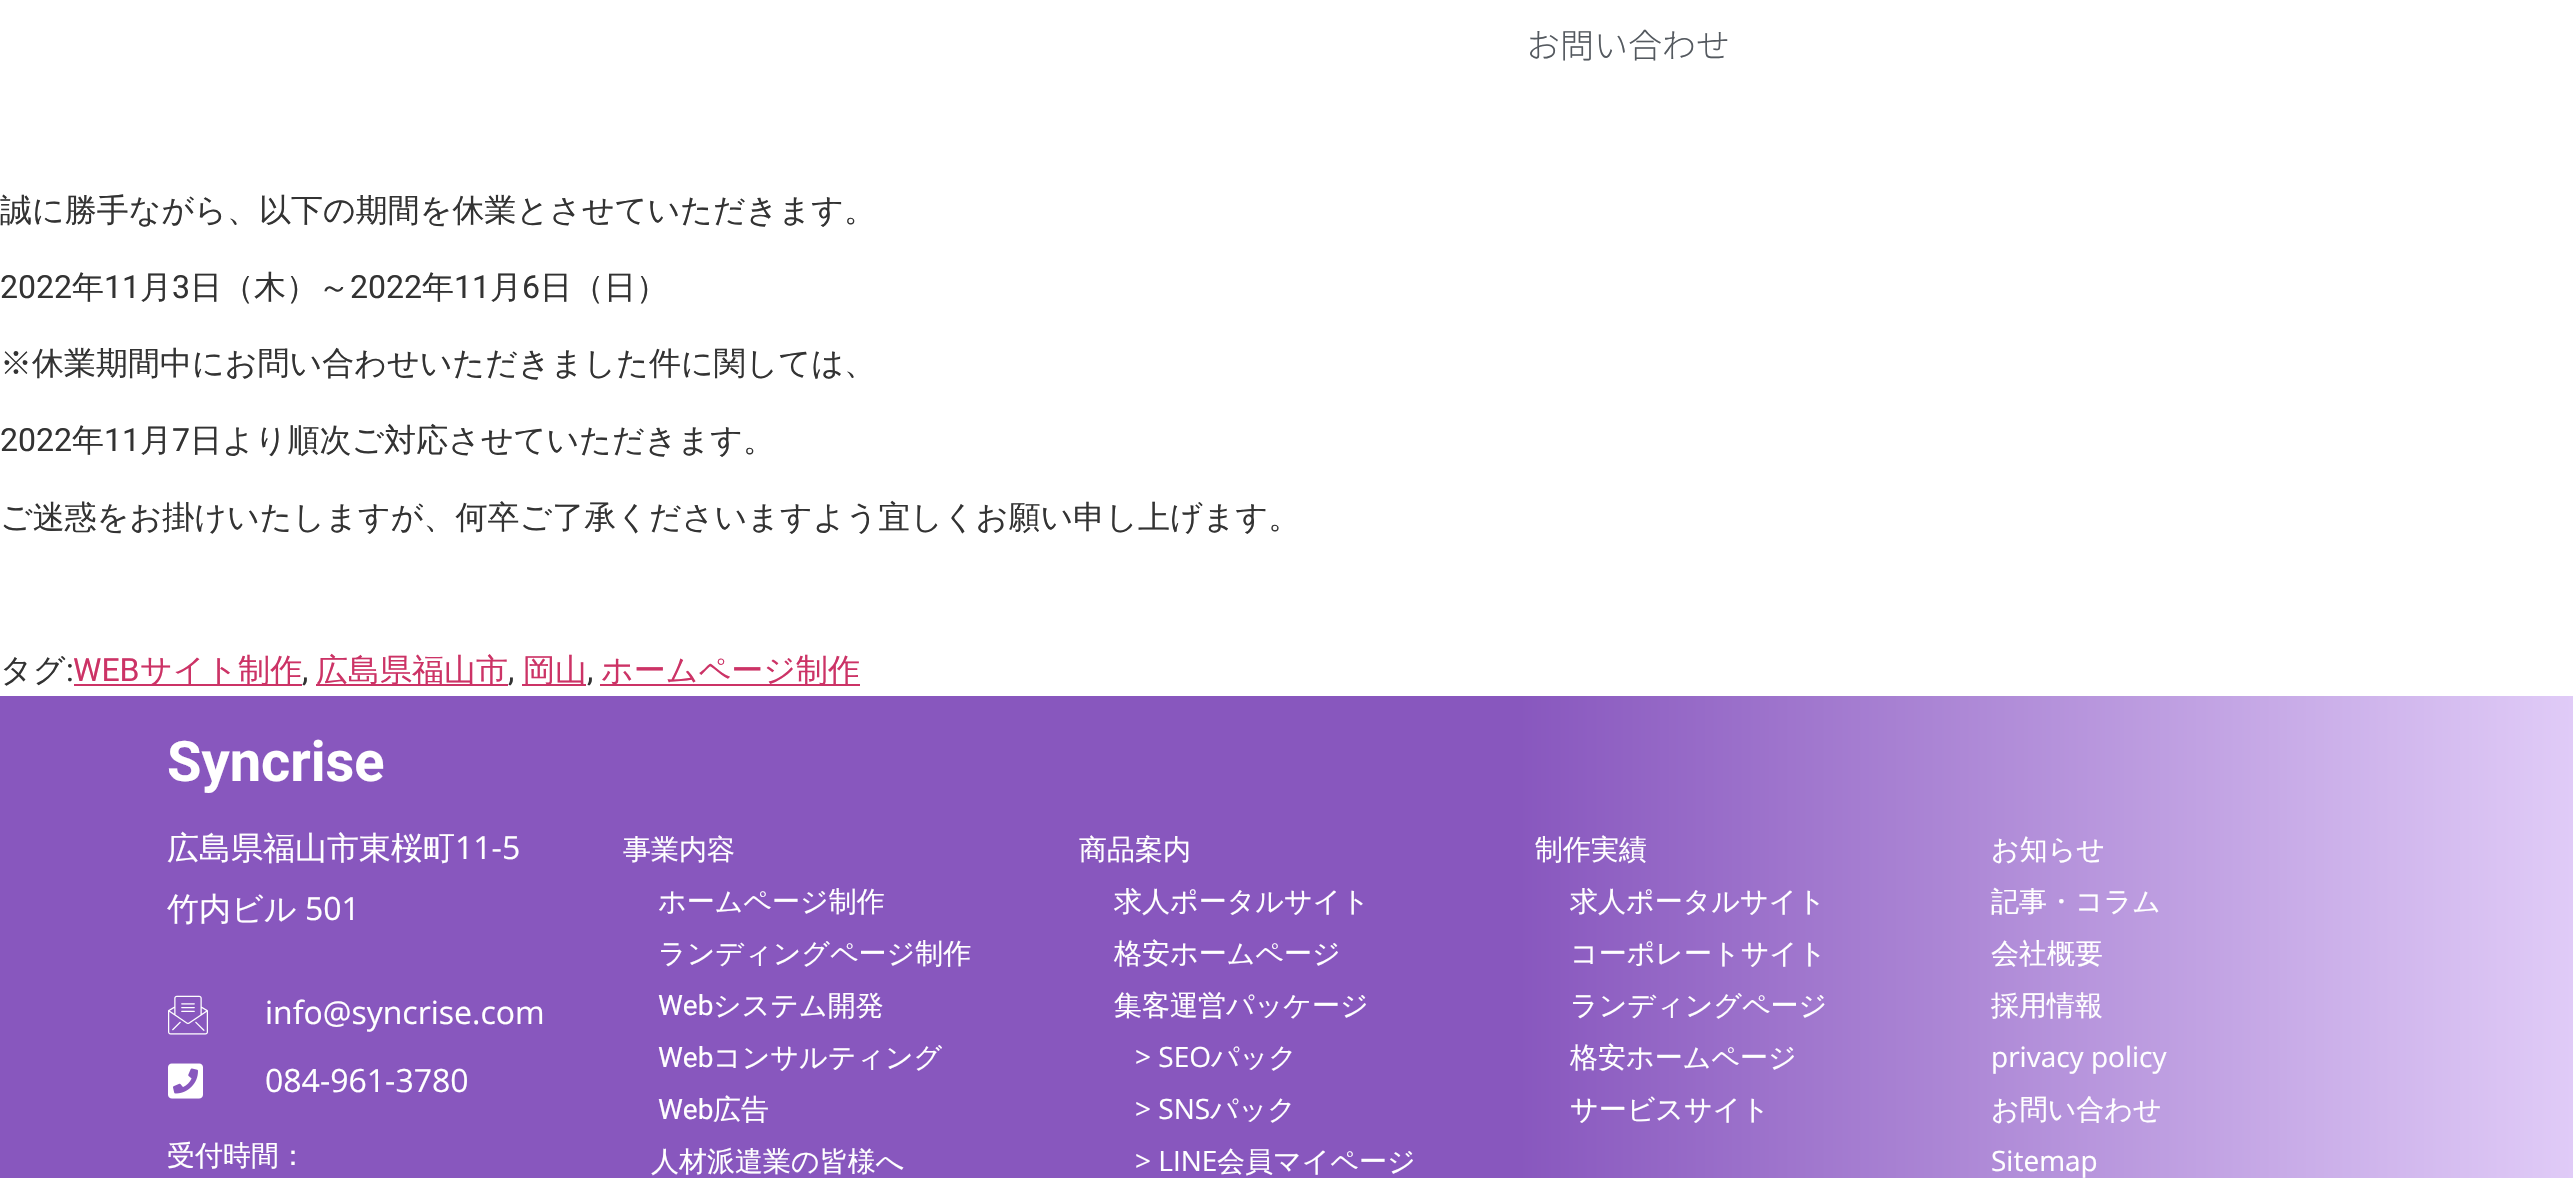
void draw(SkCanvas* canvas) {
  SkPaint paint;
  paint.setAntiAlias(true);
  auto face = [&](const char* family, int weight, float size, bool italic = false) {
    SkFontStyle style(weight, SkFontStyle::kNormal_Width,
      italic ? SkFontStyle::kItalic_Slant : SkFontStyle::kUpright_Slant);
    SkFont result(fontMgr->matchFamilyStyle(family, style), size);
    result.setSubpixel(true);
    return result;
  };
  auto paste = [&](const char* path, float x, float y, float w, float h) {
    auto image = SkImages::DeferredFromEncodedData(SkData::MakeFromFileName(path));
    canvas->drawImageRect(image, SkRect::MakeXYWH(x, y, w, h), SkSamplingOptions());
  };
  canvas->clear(0xffffffff);
  {
    const struct { float x, y, w, h; SkColor color; } items[] = {
      {74, 684, 228, 2, 0xffcc3366},
      {316, 684, 192, 2, 0xffcc3366},
      {522, 684, 64, 2, 0xffcc3366},
      {600, 684, 260, 2, 0xffcc3366},
    };
    for (auto [x, y, w, h, color] : items) {
      paint.setColor(color);
      canvas->drawRect(SkRect::MakeXYWH(x, y, w, h), paint);
    }
  }
  {
    const SkColor colors[] = {0xff8857be, 0xffe0cbf7};
    const float stops[] = {0.59f, 1};
    const SkPoint ends[] = {{0, 1053}, {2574, 1053}};
    paint.setShader(SkGradientShader::MakeLinear(ends, colors, stops, 2, SkTileMode::kClamp));
    paint.setAlpha(255);
  }
  canvas->drawRect(SkRect::MakeXYWH(0, 696, 2573, 482), paint);
  paste("img/1.png", 168, 995, 40, 40);
  paste("img/2.png", 168, 1063, 35, 36);
  auto f0 = face("Noto Sans JP", 300, 34);
  paint.setShader(nullptr);
  paint.setColor(0xff54595f);
  canvas->drawString("お問い合わせ", 1526, 58, f0, paint);
  auto f1 = face("WenQuanYi Zen Hei", 500, 32);
  paint.setColor(0xff333333);
  canvas->drawString("誠に勝手ながら、以下の期間を休業とさせていただきます。", 0, 221, f1, paint);
  auto f2 = face("Roboto", 400, 32);
  canvas->drawString("2022", 0, 298, f2, paint);
  canvas->drawString("年", 72, 298, f1, paint);
  canvas->drawString("11", 104, 298, f2, paint);
  canvas->drawString("月", 140, 298, f1, paint);
  canvas->drawString("3", 172, 298, f2, paint);
  canvas->drawString("日（木）～", 190, 298, f1, paint);
  canvas->drawString("2022", 350, 298, f2, paint);
  canvas->drawString("年", 422, 298, f1, paint);
  canvas->drawString("11", 454, 298, f2, paint);
  canvas->drawString("月", 490, 298, f1, paint);
  canvas->drawString("6", 522, 298, f2, paint);
  canvas->drawString("日（日）", 540, 298, f1, paint);
  canvas->drawString("※休業期間中にお問い合わせいただきました件に関しては、", 0, 374, f1, paint);
  canvas->drawString("2022", 0, 451, f2, paint);
  canvas->drawString("年", 72, 451, f1, paint);
  canvas->drawString("11", 104, 451, f2, paint);
  canvas->drawString("月", 140, 451, f1, paint);
  canvas->drawString("7", 172, 451, f2, paint);
  {
    const struct { const char* s; float x, y; } items[] = {
      {"日より順次ご対応させていただきます。", 190, 451},
      {"ご迷惑をお掛けいたしますが、何卒ご了承くださいますよう宜しくお願い申し上げます。", 0, 528},
      {"タグ", 0, 681},
    };
    for (auto [s, x, y] : items) {
      canvas->drawString(s, x, y, f1, paint);
    }
  }
  canvas->drawString(":", 66, 681, f2, paint);
  paint.setColor(0xffcc3366);
  canvas->drawString("WEB", 73, 681, f2, paint);
  canvas->drawString("サイト制作", 140, 681, f1, paint);
  paint.setColor(0xff333333);
  canvas->drawString(",", 302, 681, f2, paint);
  paint.setColor(0xffcc3366);
  canvas->drawString("広島県福山市", 316, 681, f1, paint);
  paint.setColor(0xff333333);
  canvas->drawString(",", 508, 681, f2, paint);
  paint.setColor(0xffcc3366);
  canvas->drawString("岡山", 523, 681, f1, paint);
  paint.setColor(0xff333333);
  canvas->drawString(",", 587, 681, f2, paint);
  paint.setColor(0xffcc3366);
  canvas->drawString("ホームページ制作", 601, 681, f1, paint);
  auto f3 = face("Roboto", 700, 56);
  paint.setColor(0xffffffff);
  canvas->drawString("Syncrise", 167, 781, f3, paint);
  canvas->drawString("広島県福山市東桜町", 167, 859, f1, paint);
  auto f4 = face("Open Sans", 400, 32);
  canvas->drawString("11-5", 455, 859, f4, paint);
  canvas->drawString("竹内ビル", 167, 920, f1, paint);
  {
    const struct { const char* s; float x, y; } items[] = {
      {"501", 305, 920},
      {"info@syncrise.com", 265, 1024},
      {"084-961-3780", 265, 1092},
    };
    for (auto [s, x, y] : items) {
      canvas->drawString(s, x, y, f4, paint);
    }
  }
  auto f5 = face("WenQuanYi Zen Hei", 500, 28);
  {
    const struct { const char* s; float x, y; } items[] = {
      {"受付時間：", 167, 1165},
      {"事業内容", 623, 859},
      {"ホームページ制作", 658, 911},
      {"ランディングページ制作", 658, 963},
    };
    for (auto [s, x, y] : items) {
      canvas->drawString(s, x, y, f5, paint);
    }
  }
  auto f6 = face("Roboto", 400, 28);
  canvas->drawString("Web", 658, 1015, f6, paint);
  canvas->drawString("システム開発", 713, 1015, f5, paint);
  canvas->drawString("Web", 658, 1067, f6, paint);
  canvas->drawString("コンサルティング", 713, 1067, f5, paint);
  canvas->drawString("Web", 658, 1119, f6, paint);
  {
    const struct { const char* s; float x, y; } items[] = {
      {"広告", 713, 1119},
      {"人材派遣業の皆様へ", 651, 1171},
      {"商品案内", 1079, 859},
      {"求人ポータルサイト", 1114, 911},
      {"格安ホームページ", 1114, 963},
      {"集客運営パッケージ", 1114, 1015},
    };
    for (auto [s, x, y] : items) {
      canvas->drawString(s, x, y, f5, paint);
    }
  }
  auto f7 = face("Open Sans", 400, 28);
  canvas->drawString("> SEO", 1135, 1067, f7, paint);
  canvas->drawString("パック", 1211, 1067, f5, paint);
  canvas->drawString("> SNS", 1135, 1119, f7, paint);
  canvas->drawString("パック", 1210, 1119, f5, paint);
  canvas->drawString("> LINE", 1135, 1171, f7, paint);
  {
    const struct { const char* s; float x, y; } items[] = {
      {"会員マイページ", 1217, 1171},
      {"制作実績", 1535, 859},
      {"求人ポータルサイト", 1570, 911},
      {"コーポレートサイト", 1570, 963},
      {"ランディングページ", 1570, 1015},
      {"格安ホームページ", 1570, 1067},
      {"サービスサイト", 1570, 1119},
      {"お知らせ", 1991, 859},
      {"記事・コラム", 1991, 911},
      {"会社概要", 1991, 963},
      {"採用情報", 1991, 1015},
    };
    for (auto [s, x, y] : items) {
      canvas->drawString(s, x, y, f5, paint);
    }
  }
  canvas->drawString("privacy policy", 1991, 1067, f7, paint);
  canvas->drawString("お問い合わせ", 1991, 1119, f5, paint);
  canvas->drawString("Sitemap", 1991, 1171, f7, paint);
}
